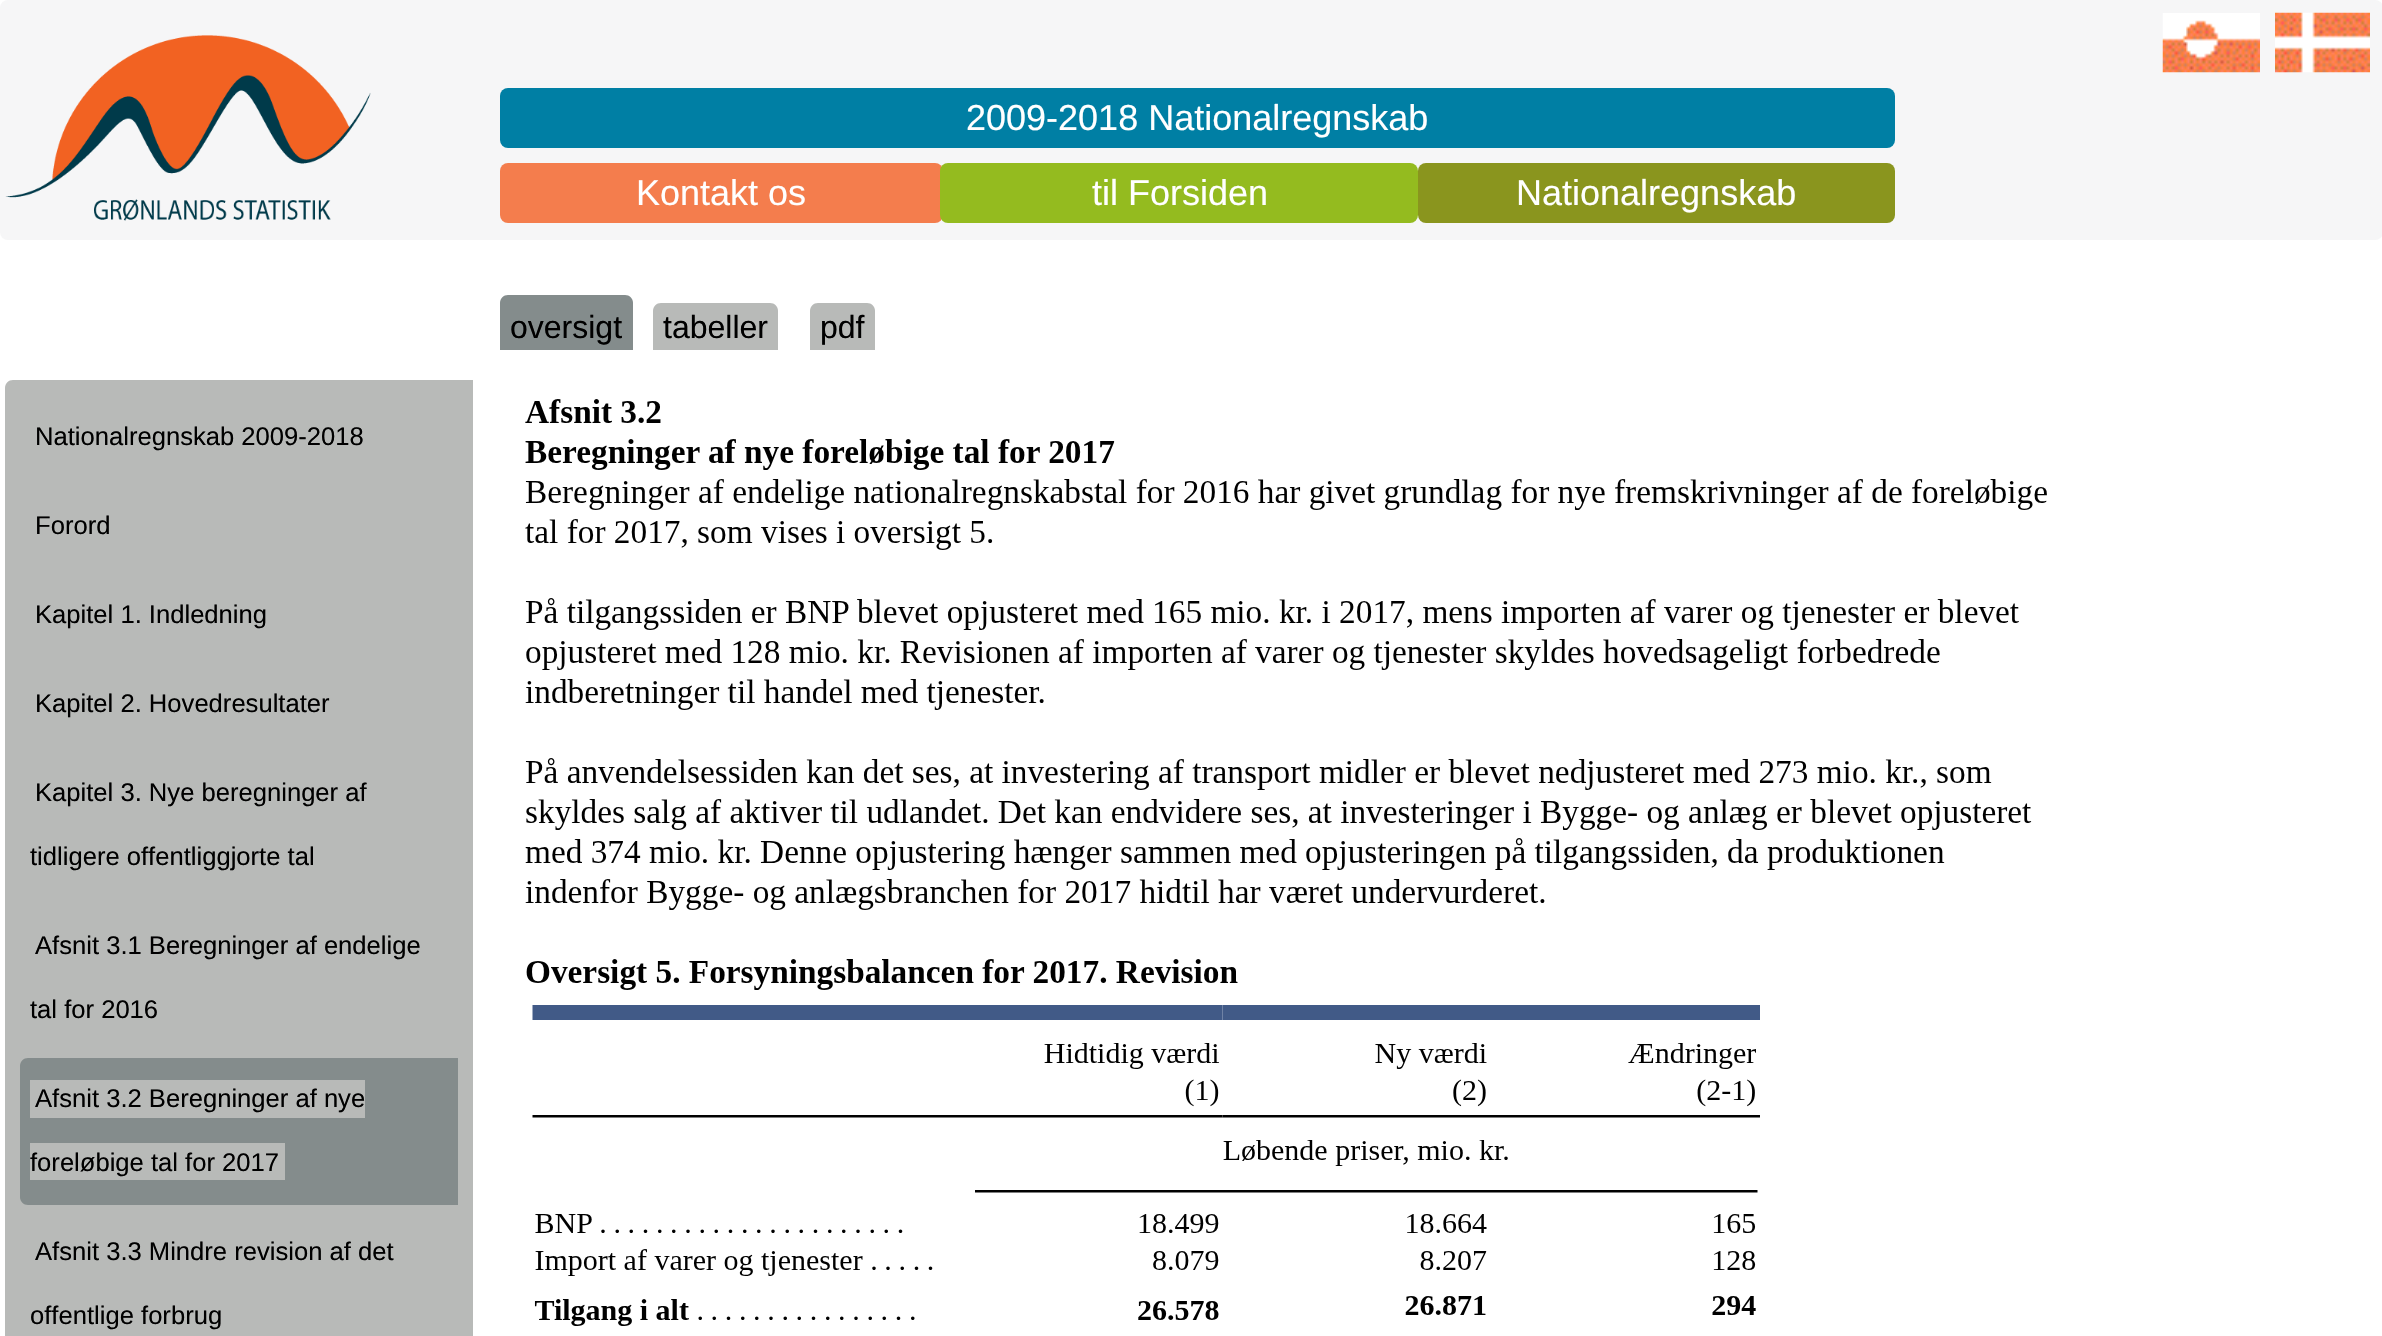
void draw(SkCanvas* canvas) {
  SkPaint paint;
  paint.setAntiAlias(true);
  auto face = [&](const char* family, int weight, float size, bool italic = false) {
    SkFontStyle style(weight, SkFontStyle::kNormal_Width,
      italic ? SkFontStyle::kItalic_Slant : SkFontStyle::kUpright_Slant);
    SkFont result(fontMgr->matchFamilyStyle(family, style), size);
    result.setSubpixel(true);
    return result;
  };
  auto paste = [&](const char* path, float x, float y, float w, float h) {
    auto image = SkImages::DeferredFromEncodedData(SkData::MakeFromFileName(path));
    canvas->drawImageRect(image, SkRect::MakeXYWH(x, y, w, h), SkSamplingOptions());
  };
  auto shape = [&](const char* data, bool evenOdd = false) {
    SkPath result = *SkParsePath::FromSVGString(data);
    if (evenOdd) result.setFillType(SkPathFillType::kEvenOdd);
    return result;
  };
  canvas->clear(0xffffffff);
  paint.setColor(0xfff6f6f7);
  canvas->drawRoundRect(SkRect::MakeXYWH(0, 0, 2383, 240), 8, 8, paint);
  paste("img/1.png", 5, 35, 366, 186);
  paint.setColor(0xff007fa4);
  canvas->drawRoundRect(SkRect::MakeXYWH(500, 88, 1395, 60), 8, 8, paint);
  paint.setColor(0xfff47d4d);
  canvas->drawRoundRect(SkRect::MakeXYWH(500, 163, 443, 60), 8, 8, paint);
  paint.setColor(0xff94bb1f);
  canvas->drawRoundRect(SkRect::MakeXYWH(940, 163, 478, 60), 8, 8, paint);
  paint.setColor(0xff8a951e);
  canvas->drawRoundRect(SkRect::MakeXYWH(1418, 163, 477, 60), 8, 8, paint);
  paste("img/2.png", 2162, 13, 98, 60);
  paste("img/3.png", 2275, 12, 95, 61);
  paint.setColor(0xff848c8c);
  canvas->drawPath(shape("M508 295H625C629.5 295 633 298.5 633 303V350H500V303C500 298.5 503.5 295 508 295Z"), paint);
  paint.setColor(0xffb8bab8);
  canvas->drawPath(shape("M661 303H770C774.5 303 778 306.5 778 311V350H653V311C653 306.5 656.5 303 661 303Z"), paint);
  canvas->drawPath(shape("M818 303H867C871.5 303 875 306.5 875 311V350H810V311C810 306.5 813.5 303 818 303Z"), paint);
  canvas->drawPath(shape("M13 380H473V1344H13C8.5 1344 5 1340.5 5 1336V388C5 383.5 8.5 380 13 380Z"), paint);
  paint.setColor(0xff848c8c);
  canvas->drawPath(shape("M28 1058H458V1205H28C23.5 1205 20 1201.5 20 1197V1066C20 1061.5 23.5 1058 28 1058Z"), paint);
  paint.setColor(0xffb8bab8);
  canvas->drawRect(SkRect::MakeXYWH(30, 1080, 335, 38), paint);
  canvas->drawRect(SkRect::MakeXYWH(30, 1143, 255, 37), paint);
  paste("img/4.png", 525, 399, 1522, 927);
  auto f0 = face("Liberation Sans", 400, 36);
  paint.setColor(0xffffffff);
  {
    const struct { const char* s; float x, y; } items[] = {
      {"2009-2018 Nationalregnskab", 966, 130},
      {"Kontakt os", 636, 205},
      {"til Forsiden", 1092, 205},
      {"Nationalregnskab", 1516, 205},
    };
    for (auto [s, x, y] : items) {
      canvas->drawString(s, x, y, f0, paint);
    }
  }
  auto f1 = face("Liberation Sans", 400, 32);
  paint.setColor(0xff000000);
  {
    const struct { const char* s; float x, y; } items[] = {
      {"oversigt", 510, 338},
      {"tabeller", 663, 338},
      {"pdf", 820, 338},
    };
    for (auto [s, x, y] : items) {
      canvas->drawString(s, x, y, f1, paint);
    }
  }
  auto f2 = face("Liberation Sans", 400, 25.6f);
  {
    const struct { const char* s; float x, y; } items[] = {
      {"Nationalregnskab 2009-2018", 35, 445},
      {"Forord", 35, 534},
      {"Kapitel 1. Indledning", 35, 623},
      {"Kapitel 2. Hovedresultater", 35, 712},
      {"Kapitel 3. Nye beregninger af", 35, 801},
      {"tidligere offentliggjorte tal", 30, 865},
      {"Afsnit 3.1 Beregninger af endelige", 35, 954},
      {"tal for 2016", 30, 1018},
      {"Afsnit 3.2 Beregninger af nye", 35, 1107},
      {"foreløbige tal for 2017", 30, 1171},
      {"Afsnit 3.3 Mindre revision af det", 35, 1260},
      {"offentlige forbrug", 30, 1324},
    };
    for (auto [s, x, y] : items) {
      canvas->drawString(s, x, y, f2, paint);
    }
  }
}
